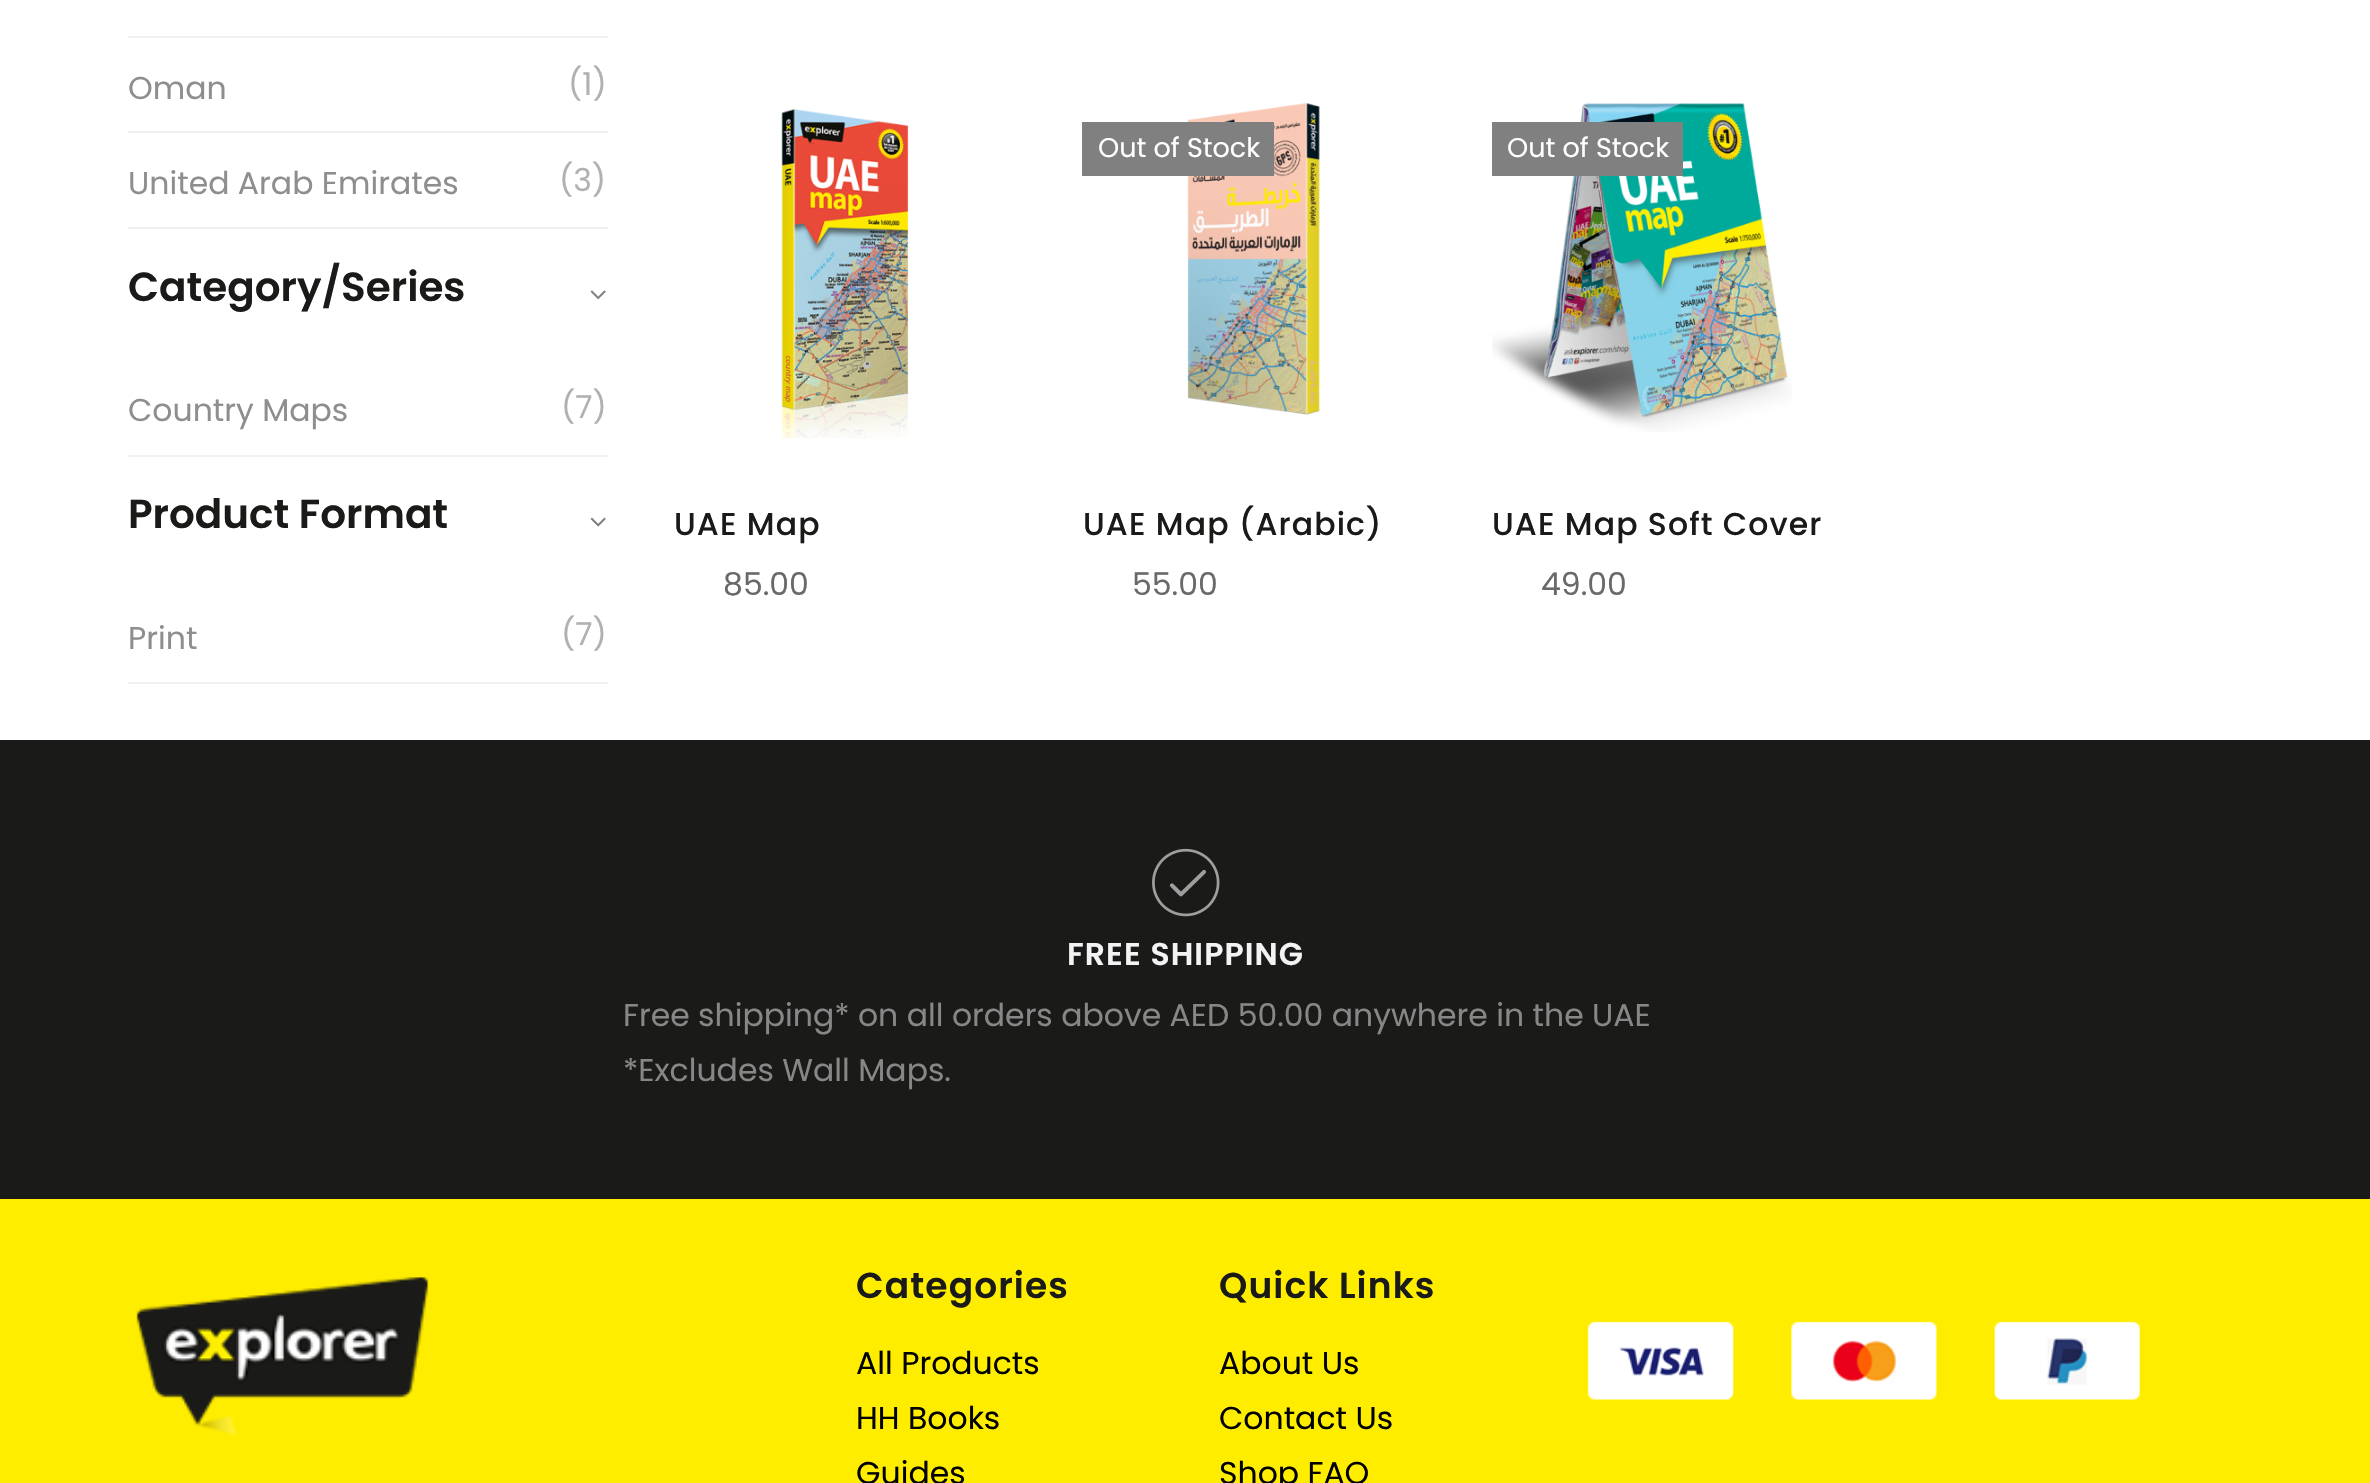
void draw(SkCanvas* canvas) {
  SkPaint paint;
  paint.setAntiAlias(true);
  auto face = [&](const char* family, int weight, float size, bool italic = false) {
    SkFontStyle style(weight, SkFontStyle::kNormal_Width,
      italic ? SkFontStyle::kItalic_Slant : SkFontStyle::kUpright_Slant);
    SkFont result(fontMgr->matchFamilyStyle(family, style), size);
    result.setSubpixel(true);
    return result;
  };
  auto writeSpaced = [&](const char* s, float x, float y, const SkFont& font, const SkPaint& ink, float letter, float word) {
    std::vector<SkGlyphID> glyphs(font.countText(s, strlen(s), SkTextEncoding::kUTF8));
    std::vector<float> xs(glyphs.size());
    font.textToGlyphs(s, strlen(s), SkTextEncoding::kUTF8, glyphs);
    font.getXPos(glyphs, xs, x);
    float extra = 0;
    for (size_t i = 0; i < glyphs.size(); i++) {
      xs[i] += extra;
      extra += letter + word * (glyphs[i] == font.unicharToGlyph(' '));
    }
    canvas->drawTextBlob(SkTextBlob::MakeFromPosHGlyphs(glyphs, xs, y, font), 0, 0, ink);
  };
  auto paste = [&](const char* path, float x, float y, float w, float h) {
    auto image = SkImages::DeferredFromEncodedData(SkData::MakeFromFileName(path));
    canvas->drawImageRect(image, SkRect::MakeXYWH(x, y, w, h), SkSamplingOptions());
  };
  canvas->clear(0xffffffff);
  {
    const struct { float x, y, w, h; SkColor color; } items[] = {
      {128, 36, 480, 2, 0xfff0f0f0},
      {128, 131, 480, 2, 0xfff0f0f0},
      {128, 227, 480, 2, 0xfff0f0f0},
    };
    for (auto [x, y, w, h, color] : items) {
      paint.setColor(color);
      canvas->drawRect(SkRect::MakeXYWH(x, y, w, h), paint);
    }
  }
  paste("img/1.png", 590, 290, 16, 10);
  canvas->drawRect(SkRect::MakeXYWH(128, 455, 480, 2), paint);
  paste("img/2.png", 590, 517, 16, 10);
  canvas->drawRect(SkRect::MakeXYWH(128, 682, 480, 2), paint);
  paste("img/3.png", 781, 109, 128, 330);
  paste("img/4.png", 1187, 102, 133, 313);
  paint.setColor(0xff808080);
  canvas->drawRect(SkRect::MakeXYWH(1082, 122, 192, 54), paint);
  paste("img/5.png", 1492, 103, 300, 329);
  canvas->drawRect(SkRect::MakeXYWH(1492, 122, 191, 54), paint);
  paint.setColor(0xff1a1a18);
  canvas->drawRect(SkRect::MakeXYWH(0, 740, 2370, 459), paint);
  paste("img/6.png", 1152, 848, 68, 69);
  paint.setColor(0xffffed00);
  canvas->drawRect(SkRect::MakeXYWH(0, 1199, 2370, 284), paint);
  paste("img/7.png", 136, 1277, 293, 159);
  paste("img/8.png", 1587, 1321, 553, 79);
  auto f0 = face("Poppins", 400, 31.5f);
  paint.setColor(0xff8e8e8e);
  canvas->drawString("Oman", 128, 99, f0, paint);
  paint.setColor(0xffb1b1b1);
  canvas->drawString("(1)", 568, 95, f0, paint);
  paint.setColor(0xff8e8e8e);
  canvas->drawString("United Arab Emirates", 128, 194, f0, paint);
  paint.setColor(0xffb1b1b1);
  canvas->drawString("(3)", 559, 191, f0, paint);
  auto f1 = face("Poppins", 600, 40.5f);
  paint.setColor(0xff1a1a18);
  canvas->drawString("Category/Series", 128, 301, f1, paint);
  paint.setColor(0xff8e8e8e);
  canvas->drawString("Country Maps", 128, 421, f0, paint);
  paint.setColor(0xffb1b1b1);
  canvas->drawString("(7)", 561, 418, f0, paint);
  paint.setColor(0xff1a1a18);
  canvas->drawString("Product Format", 128, 528, f1, paint);
  paint.setColor(0xff8e8e8e);
  canvas->drawString("Print", 128, 649, f0, paint);
  paint.setColor(0xffb1b1b1);
  canvas->drawString("(7)", 561, 645, f0, paint);
  auto f2 = face("Poppins", 500, 31.5f);
  paint.setColor(0xff1a1a18);
  writeSpaced("UAE Map", 674, 535, f2, paint, 1.1f, 0);
  paint.setColor(0xff696969);
  canvas->drawString("85.00", 723, 595, f0, paint);
  auto f3 = face("Poppins", 400, 27);
  paint.setColor(0xffffffff);
  canvas->drawString("Out of Stock", 1098, 157, f3, paint);
  paint.setColor(0xff1a1a18);
  writeSpaced("UAE Map (Arabic)", 1083, 535, f2, paint, 1.1f, 0);
  paint.setColor(0xff696969);
  canvas->drawString("55.00", 1132, 595, f0, paint);
  paint.setColor(0xffffffff);
  canvas->drawString("Out of Stock", 1507, 157, f3, paint);
  paint.setColor(0xff1a1a18);
  writeSpaced("UAE Map Soft Cover", 1492, 535, f2, paint, 1.1f, 0);
  paint.setColor(0xff696969);
  canvas->drawString("49.00", 1541, 595, f0, paint);
  auto f4 = face("Poppins", 600, 31.5f);
  paint.setColor(0xfff3f3f3);
  writeSpaced("FREE SHIPPING", 1067, 965, f4, paint, 1.1f, 0);
  paint.setColor(0xff878787);
  canvas->drawString("Free shipping* on all orders above AED 50.00 anywhere in the UAE", 623, 1026, f0, paint);
  canvas->drawString("*Excludes Wall Maps.", 623, 1081, f0, paint);
  auto f5 = face("Poppins", 600, 36);
  paint.setColor(0xff1a1a18);
  writeSpaced("Categories", 856, 1298, f5, paint, 1.1f, 0);
  paint.setColor(0xff000000);
  {
    const struct { const char* s; float x, y; } items[] = {
      {"All Products", 856, 1374},
      {"HH Books", 856, 1429},
      {"Guides", 856, 1484},
    };
    for (auto [s, x, y] : items) {
      canvas->drawString(s, x, y, f0, paint);
    }
  }
  paint.setColor(0xff1a1a18);
  writeSpaced("Quick Links", 1219, 1298, f5, paint, 1.1f, 0);
  paint.setColor(0xff000000);
  {
    const struct { const char* s; float x, y; } items[] = {
      {"About Us", 1219, 1374},
      {"Contact Us", 1219, 1429},
      {"Shop FAQ", 1219, 1484},
    };
    for (auto [s, x, y] : items) {
      canvas->drawString(s, x, y, f0, paint);
    }
  }
}
